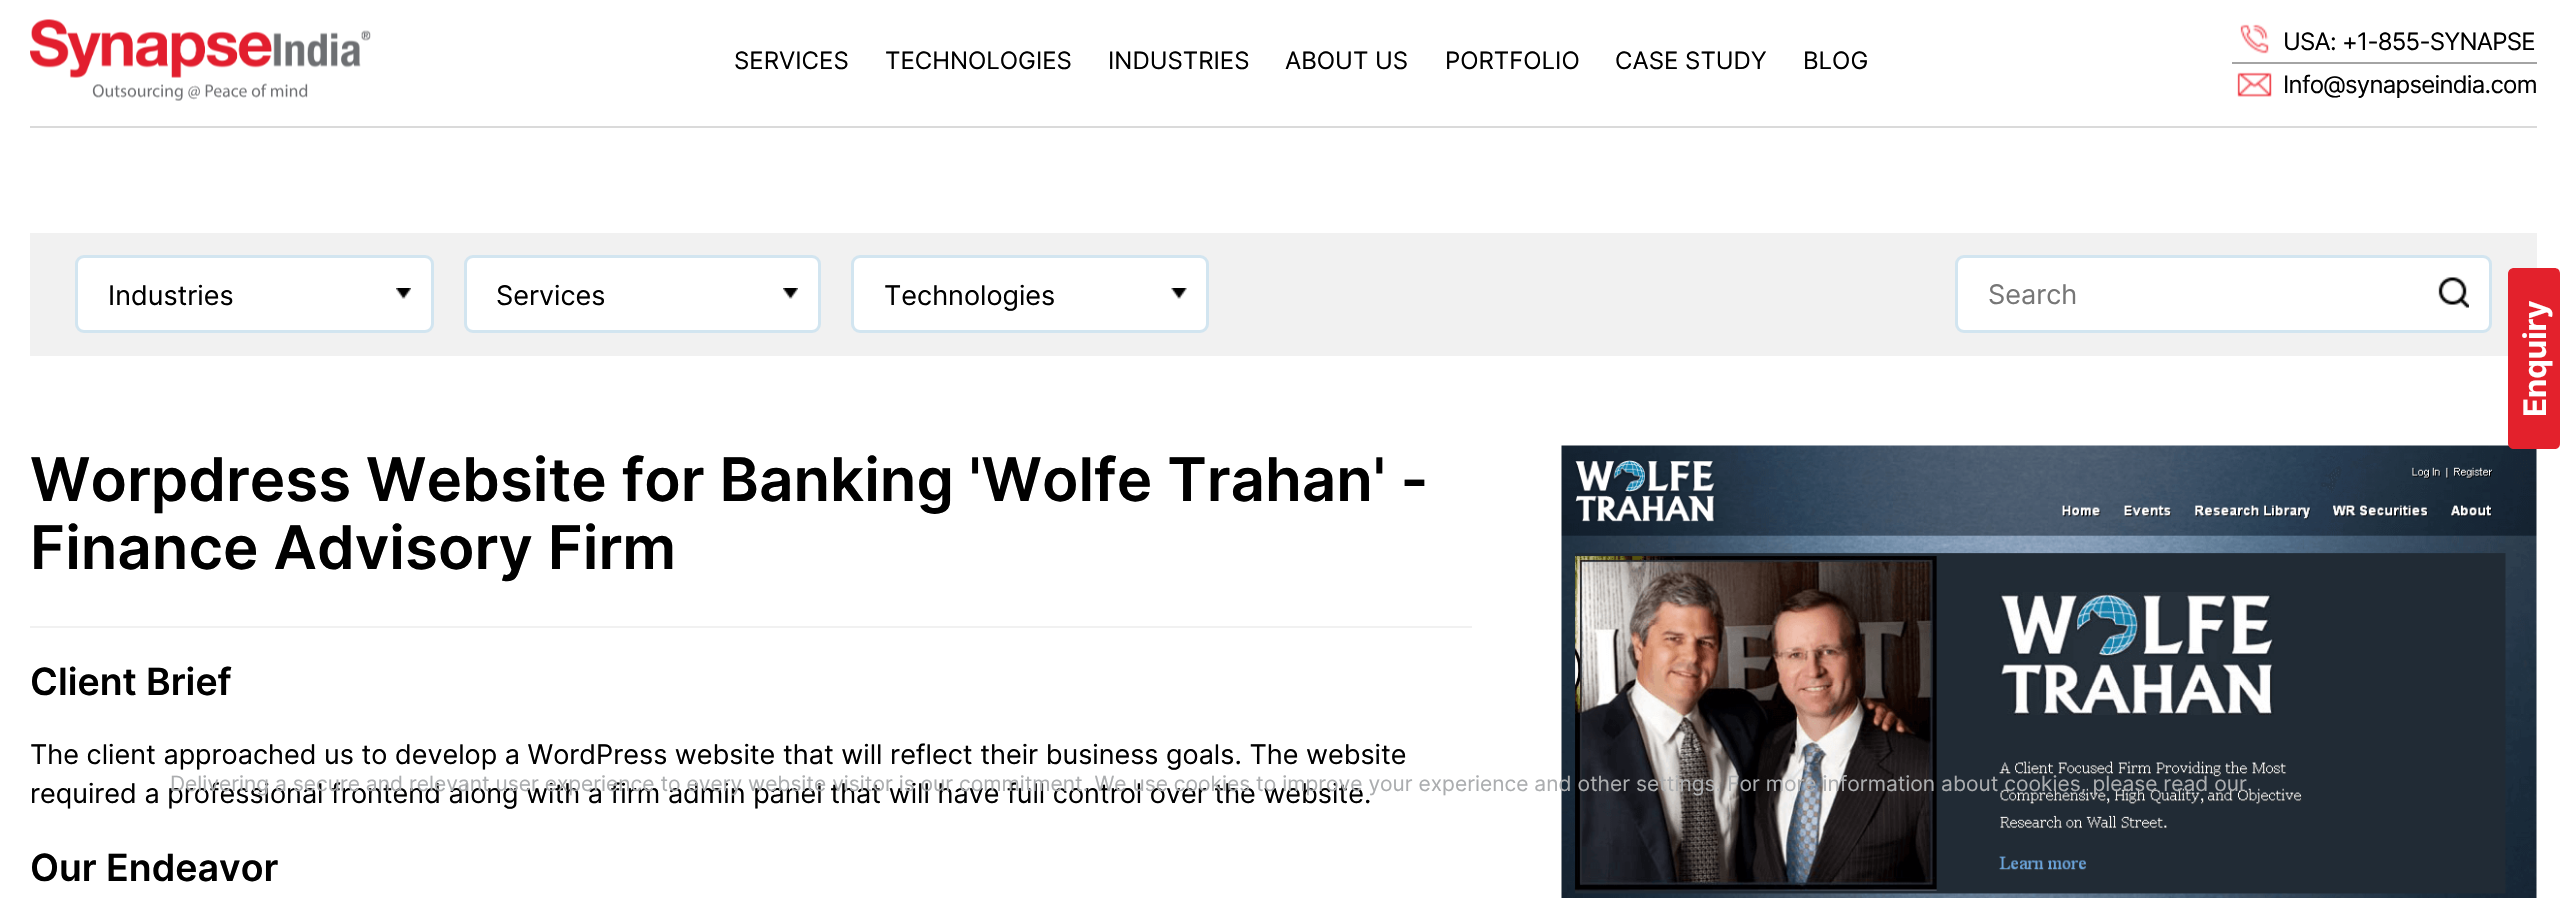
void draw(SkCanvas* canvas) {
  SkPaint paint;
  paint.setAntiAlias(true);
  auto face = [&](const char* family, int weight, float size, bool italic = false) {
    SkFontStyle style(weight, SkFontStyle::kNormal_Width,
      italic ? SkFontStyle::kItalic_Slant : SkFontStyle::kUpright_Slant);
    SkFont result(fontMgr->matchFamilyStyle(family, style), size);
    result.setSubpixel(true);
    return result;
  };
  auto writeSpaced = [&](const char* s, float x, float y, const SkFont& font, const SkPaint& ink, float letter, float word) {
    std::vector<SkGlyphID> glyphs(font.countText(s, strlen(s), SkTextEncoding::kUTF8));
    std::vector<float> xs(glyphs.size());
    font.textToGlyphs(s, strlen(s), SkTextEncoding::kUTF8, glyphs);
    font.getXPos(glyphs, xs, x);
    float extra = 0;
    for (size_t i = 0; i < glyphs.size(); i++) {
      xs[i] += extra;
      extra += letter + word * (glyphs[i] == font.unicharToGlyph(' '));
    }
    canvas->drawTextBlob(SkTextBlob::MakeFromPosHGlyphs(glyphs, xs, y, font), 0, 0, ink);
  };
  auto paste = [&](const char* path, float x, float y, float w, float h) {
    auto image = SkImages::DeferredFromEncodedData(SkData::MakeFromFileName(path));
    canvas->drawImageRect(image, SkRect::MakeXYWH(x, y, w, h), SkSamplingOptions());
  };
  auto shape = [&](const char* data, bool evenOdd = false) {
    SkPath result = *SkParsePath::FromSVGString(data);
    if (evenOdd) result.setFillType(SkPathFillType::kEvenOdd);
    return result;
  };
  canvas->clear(0xffffffff);
  paint.setColor(0xffdadada);
  canvas->drawRect(SkRect::MakeXYWH(30, 126, 2507, 2), paint);
  paste("img/1.png", 30, 19, 341, 82);
  paste("img/2.png", 2240, 24, 29, 30);
  paint.setColor(0xffa4a4a4);
  canvas->drawRect(SkRect::MakeXYWH(2232, 62, 305, 2), paint);
  paste("img/3.png", 2237, 72, 35, 25);
  paint.setColor(0xfff1f1f1);
  canvas->drawRect(SkRect::MakeXYWH(30, 233, 2507, 123), paint);
  paint.setColor(0xffffffff);
  canvas->drawRoundRect(SkRect::MakeXYWH(76.5f, 256.5f, 356, 75), 7.5f, 7.5f, paint);
  paint.setStroke(true);
  paint.setStrokeWidth(3);
  paint.setColor(0xffd2e5f0);
  canvas->drawRoundRect(SkRect::MakeXYWH(76.5f, 256.5f, 356, 75), 7.5f, 7.5f, paint);
  paste("img/4.png", 396, 288, 15, 11);
  paint.setStroke(false);
  paint.setColor(0xffffffff);
  canvas->drawRoundRect(SkRect::MakeXYWH(465.5f, 256.5f, 354, 75), 7.5f, 7.5f, paint);
  paint.setStroke(true);
  paint.setColor(0xffd2e5f0);
  canvas->drawRoundRect(SkRect::MakeXYWH(465.5f, 256.5f, 354, 75), 7.5f, 7.5f, paint);
  paste("img/5.png", 783, 288, 15, 11);
  paint.setStroke(false);
  paint.setColor(0xffffffff);
  canvas->drawRoundRect(SkRect::MakeXYWH(852.5f, 256.5f, 355, 75), 7.5f, 7.5f, paint);
  paint.setStroke(true);
  paint.setColor(0xffd2e5f0);
  canvas->drawRoundRect(SkRect::MakeXYWH(852.5f, 256.5f, 355, 75), 7.5f, 7.5f, paint);
  paste("img/6.png", 1171, 288, 16, 11);
  paint.setStroke(false);
  paint.setColor(0xffffffff);
  canvas->drawRoundRect(SkRect::MakeXYWH(1956.5f, 256.5f, 534, 75), 7.5f, 7.5f, paint);
  paint.setStroke(true);
  paint.setColor(0xffd2e5f0);
  canvas->drawRoundRect(SkRect::MakeXYWH(1956.5f, 256.5f, 534, 75), 7.5f, 7.5f, paint);
  paste("img/7.png", 2438, 277, 31, 31);
  paint.setStroke(false);
  paint.setColor(0xfff1f1f1);
  canvas->drawRect(SkRect::MakeXYWH(30, 626, 1442, 2), paint);
  paste("img/8.png", 1561, 445, 976, 453);
  paint.setColor(0xffe3212c);
  canvas->drawPath(shape("M2508 443V274C2508 270 2511 268 2514 268H2554C2558 268 2560 270 2560 274V443C2560 447 2558 449 2554 449H2514C2511 449 2508 447 2508 443Z"), paint);
  auto f0 = face("Inter", 400, 24);
  paint.setColor(0xff000000);
  {
    const struct { const char* s; float x, y; } items[] = {
      {"SERVICES", 734, 69},
      {"TECHNOLOGIES", 885, 69},
      {"INDUSTRIES", 1108, 69},
      {"ABOUT US", 1285, 69},
      {"PORTFOLIO", 1445, 69},
      {"CASE STUDY", 1615, 69},
      {"BLOG", 1803, 69},
    };
    for (auto [s, x, y] : items) {
      canvas->drawString(s, x, y, f0, paint);
    }
  }
  writeSpaced("USA: +1-855-SYNAPSE", 2283, 50, f0, paint, -0.75f, 0);
  writeSpaced("Info@synapseindia.com", 2283, 93, f0, paint, -0.75f, 0);
  auto f1 = face("Inter", 400, 27);
  {
    const struct { const char* s; float x, y; } items[] = {
      {"Industries", 108, 305},
      {"Services", 496, 305},
      {"Technologies", 884, 305},
    };
    for (auto [s, x, y] : items) {
      canvas->drawString(s, x, y, f1, paint);
    }
  }
  paint.setColor(0xff767676);
  canvas->drawString("Search", 1988, 304, f1, paint);
  auto f2 = face("Inter", 600, 60);
  paint.setColor(0xff000000);
  canvas->drawString("Worpdress Website for Banking 'Wolfe Trahan' -", 30, 501, f2, paint);
  canvas->drawString("Finance Advisory Firm", 30, 569, f2, paint);
  auto f3 = face("Inter", 600, 37.5f);
  canvas->drawString("Client Brief", 30, 695, f3, paint);
  canvas->drawString("The client approached us to develop a WordPress website that will reflect their business goals. The website", 30, 764, f1, paint);
  canvas->drawString("required a professional frontend along with a firm admin panel that will have full control over the website.", 30, 803, f1, paint);
  canvas->drawString("Our Endeavor", 30, 881, f3, paint);
  auto f4 = face("Inter", 400, 21);
  paint.setColor(0xffabadaf);
  canvas->drawString("Delivering a secure and relevant user experience to every website visitor is our commitment. We use cookies to improve your experience and other settings. For more information about cookies, please read our", 170, 791, f4, paint);
  auto f5 = face("Inter", 700, 31);
  paint.setColor(0xffffffff);
  canvas->save();
  canvas->rotate(-90, 2546, 417);
  canvas->drawString("Enquiry", 2546, 417, f5, paint);
  canvas->restore();
}
